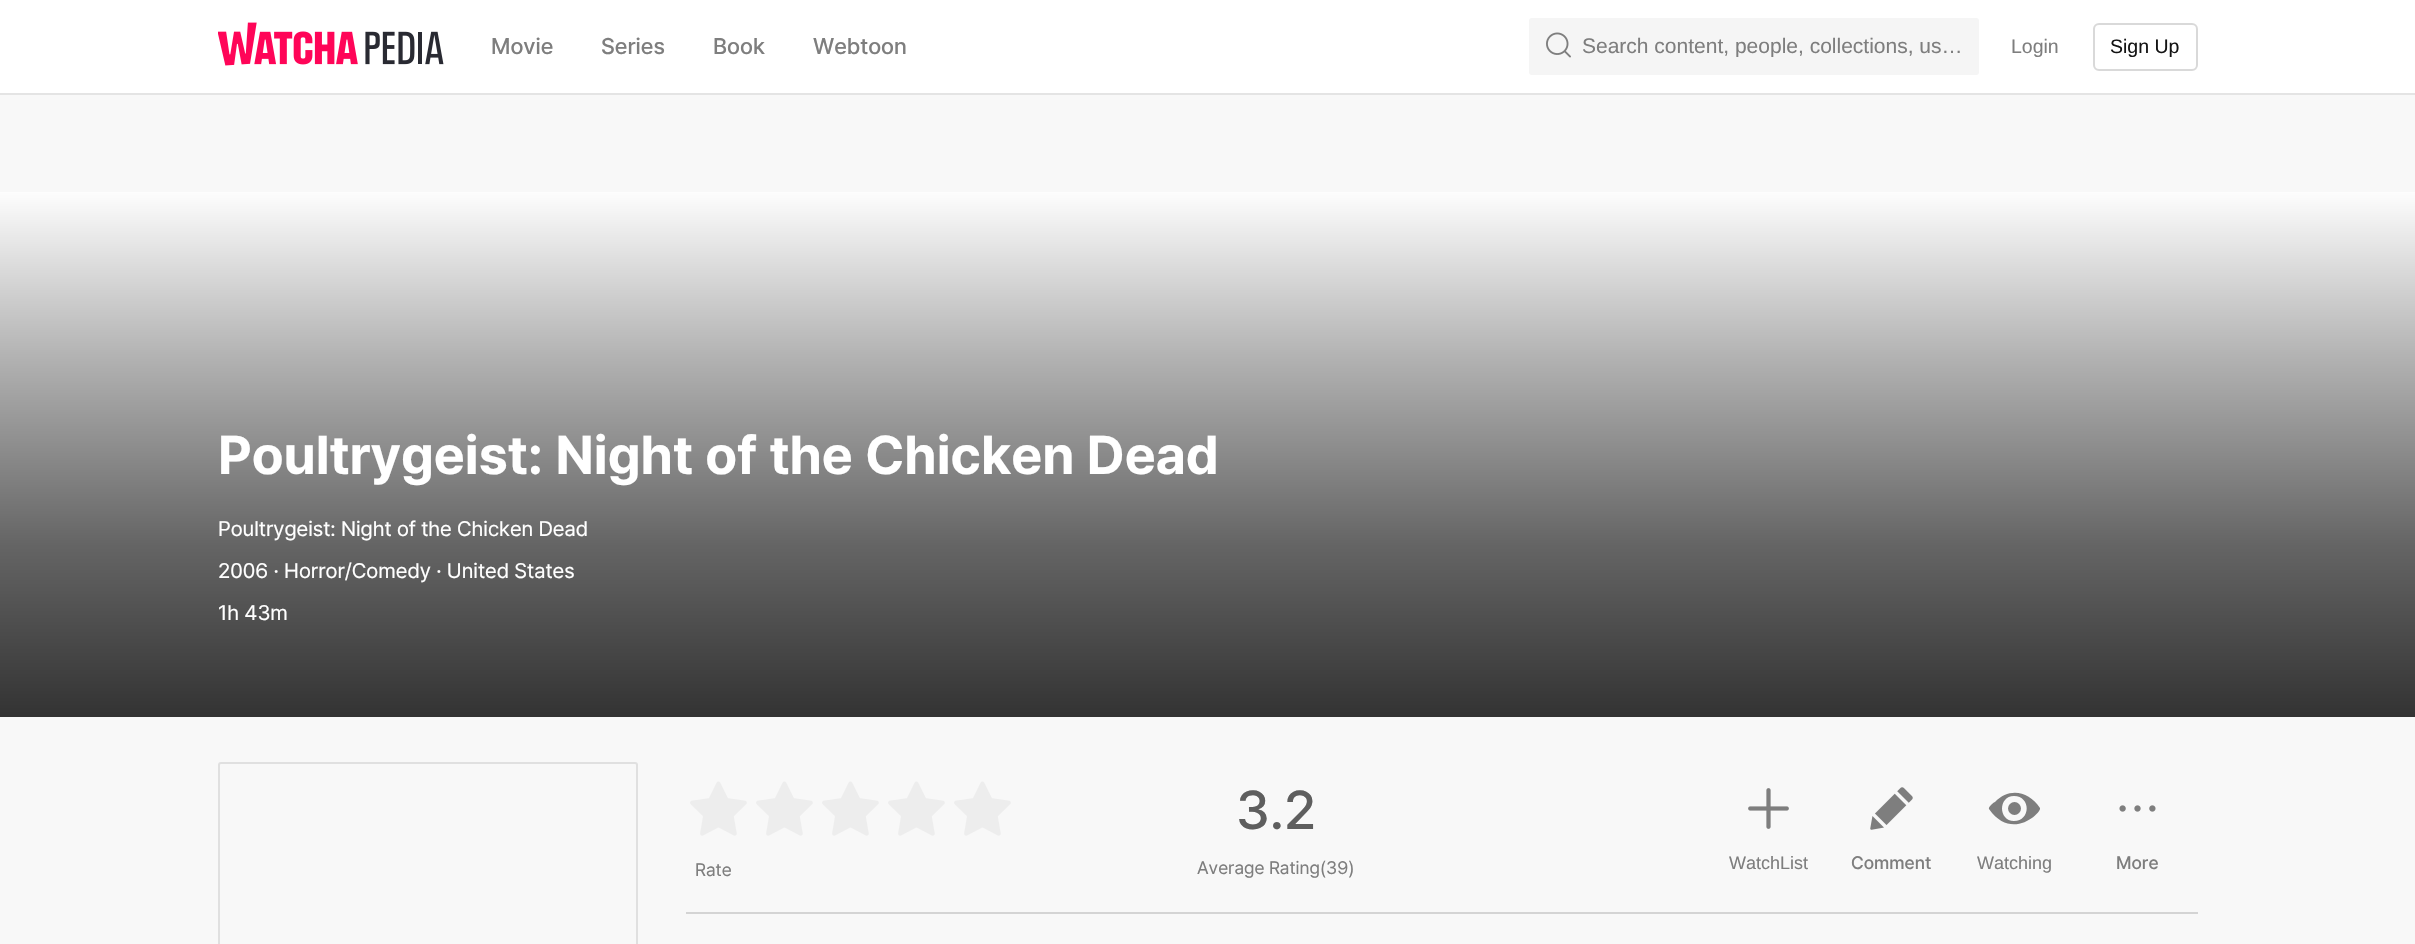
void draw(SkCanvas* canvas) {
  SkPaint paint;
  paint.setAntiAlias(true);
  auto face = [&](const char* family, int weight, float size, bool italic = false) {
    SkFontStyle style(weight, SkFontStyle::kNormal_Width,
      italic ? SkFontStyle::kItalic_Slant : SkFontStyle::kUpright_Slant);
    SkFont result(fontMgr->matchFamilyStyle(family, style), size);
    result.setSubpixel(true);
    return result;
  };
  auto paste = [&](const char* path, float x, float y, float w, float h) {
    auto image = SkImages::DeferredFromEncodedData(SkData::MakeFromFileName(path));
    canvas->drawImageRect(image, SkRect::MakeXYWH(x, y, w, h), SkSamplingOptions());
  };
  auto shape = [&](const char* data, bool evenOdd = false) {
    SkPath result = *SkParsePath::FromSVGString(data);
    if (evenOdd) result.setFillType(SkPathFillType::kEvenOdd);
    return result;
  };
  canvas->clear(0xfff8f8f8);
  paint.setColor(0xffe4e4e4);
  canvas->drawRect(SkRect::MakeXYWH(0, 93, 2415, 2), paint);
  paint.setColor(0xffffffff);
  canvas->drawRect(SkRect::MakeXYWH(0, 0, 2415, 93), paint);
  paste("img/1.png", 218, 22, 226, 44);
  paint.setColor(0xfff5f5f5);
  canvas->drawRoundRect(SkRect::MakeXYWH(1529, 18, 450, 57), 3, 3, paint);
  paste("img/2.png", 1546, 32, 25, 26);
  paint.setStroke(true);
  paint.setStrokeWidth(2);
  paint.setColor(0xffd9d9d9);
  canvas->drawRoundRect(SkRect::MakeXYWH(2094, 24, 103, 46), 5, 5, paint);
  paint.setStroke(false);
  {
    const SkColor colors[] = {0xfffdfdfd, 0xffb1b1b1, 0xff656565, 0xff333333};
    const float stops[] = {0, 0.32f, 0.67f, 1};
    const SkPoint ends[] = {{1208, 192}, {1208, 717}};
    paint.setShader(SkGradientShader::MakeLinear(ends, colors, stops, 4, SkTileMode::kClamp));
    paint.setAlpha(255);
  }
  canvas->drawRect(SkRect::MakeXYWH(0, 192, 2415, 525), paint);
  paint.setStroke(true);
  paint.setShader(nullptr);
  paint.setColor(0xffe0e0e0);
  canvas->drawRoundRect(SkRect::MakeXYWH(219, 763, 418, 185), 2, 2, paint);
  paint.setStroke(false);
  paint.setColor(0xffd4d4d4);
  canvas->drawRect(SkRect::MakeXYWH(686, 912, 1512, 2), paint);
  paste("img/3.png", 690, 781, 57, 55);
  paste("img/3.png", 756, 781, 57, 55);
  paste("img/3.png", 822, 781, 57, 55);
  paste("img/3.png", 888, 781, 57, 55);
  paste("img/3.png", 954, 781, 57, 55);
  paste("img/4.png", 1748, 788, 41, 41);
  paste("img/5.png", 1870, 787, 43, 43);
  paint.setColor(0xff7e7e7e);
  canvas->drawPath(shape("M2040 808C2029 791 2009 787 1995 802C1994 802 1988 807 1989 809C2012 842 2042 812 2040 808M2014 821C2031 821 2031 796 2014 796C1998 796 1998 821 2014 821", true), paint);
  canvas->drawCircle(2014.5f, 808.5f, 6.5f, paint);
  paste("img/6.png", 2119, 805, 37, 7);
  auto f0 = face("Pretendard", 500, 22.5f);
  {
    const struct { const char* s; float x, y; } items[] = {
      {"Movie", 491, 54},
      {"Series", 601, 54},
      {"Book", 713, 54},
      {"Webtoon", 813, 54},
    };
    for (auto [s, x, y] : items) {
      canvas->drawString(s, x, y, f0, paint);
    }
  }
  canvas->save();
  canvas->clipRect(SkRect::MakeXYWH(1583, 33, 381, 24));
  auto f1 = face("Liberation Sans", 400, 21);
  canvas->drawString("Search content, people, collections, us…", 1582, 53, f1, paint);
  canvas->restore();
  auto f2 = face("Liberation Sans", 400, 19.5f);
  canvas->drawString("Login", 2011, 53, f2, paint);
  paint.setColor(0xff141414);
  canvas->drawString("Sign Up", 2110, 53, f2, paint);
  auto f3 = face("Pretendard", 700, 54);
  paint.setColor(0xffffffff);
  canvas->drawString("Poultrygeist: Night of the Chicken Dead", 218, 474, f3, paint);
  auto f4 = face("Pretendard", 400, 21);
  {
    const struct { const char* s; float x, y; } items[] = {
      {"Poultrygeist: Night of the Chicken Dead", 218, 536},
      {"2006 · Horror/Comedy · United States", 218, 578},
      {"1h 43m", 218, 620},
    };
    for (auto [s, x, y] : items) {
      canvas->drawString(s, x, y, f4, paint);
    }
  }
  auto f5 = face("Pretendard", 400, 18);
  paint.setColor(0xff7e7e7e);
  canvas->drawString("Rate", 695, 876, f5, paint);
  auto f6 = face("Pretendard", 500, 54);
  paint.setColor(0xff5e5e5e);
  canvas->drawString("3.2", 1236, 829, f6, paint);
  paint.setColor(0xff7e7e7e);
  canvas->drawString("Average Rating(39)", 1197, 874, f5, paint);
  auto f7 = face("Liberation Sans", 400, 18);
  canvas->drawString("WatchList", 1729, 869, f7, paint);
  auto f8 = face("Pretendard", 500, 18);
  canvas->drawString("Comment", 1851, 869, f8, paint);
  canvas->drawString("Watching", 1977, 869, f7, paint);
  canvas->drawString("More", 2116, 869, f8, paint);
}
